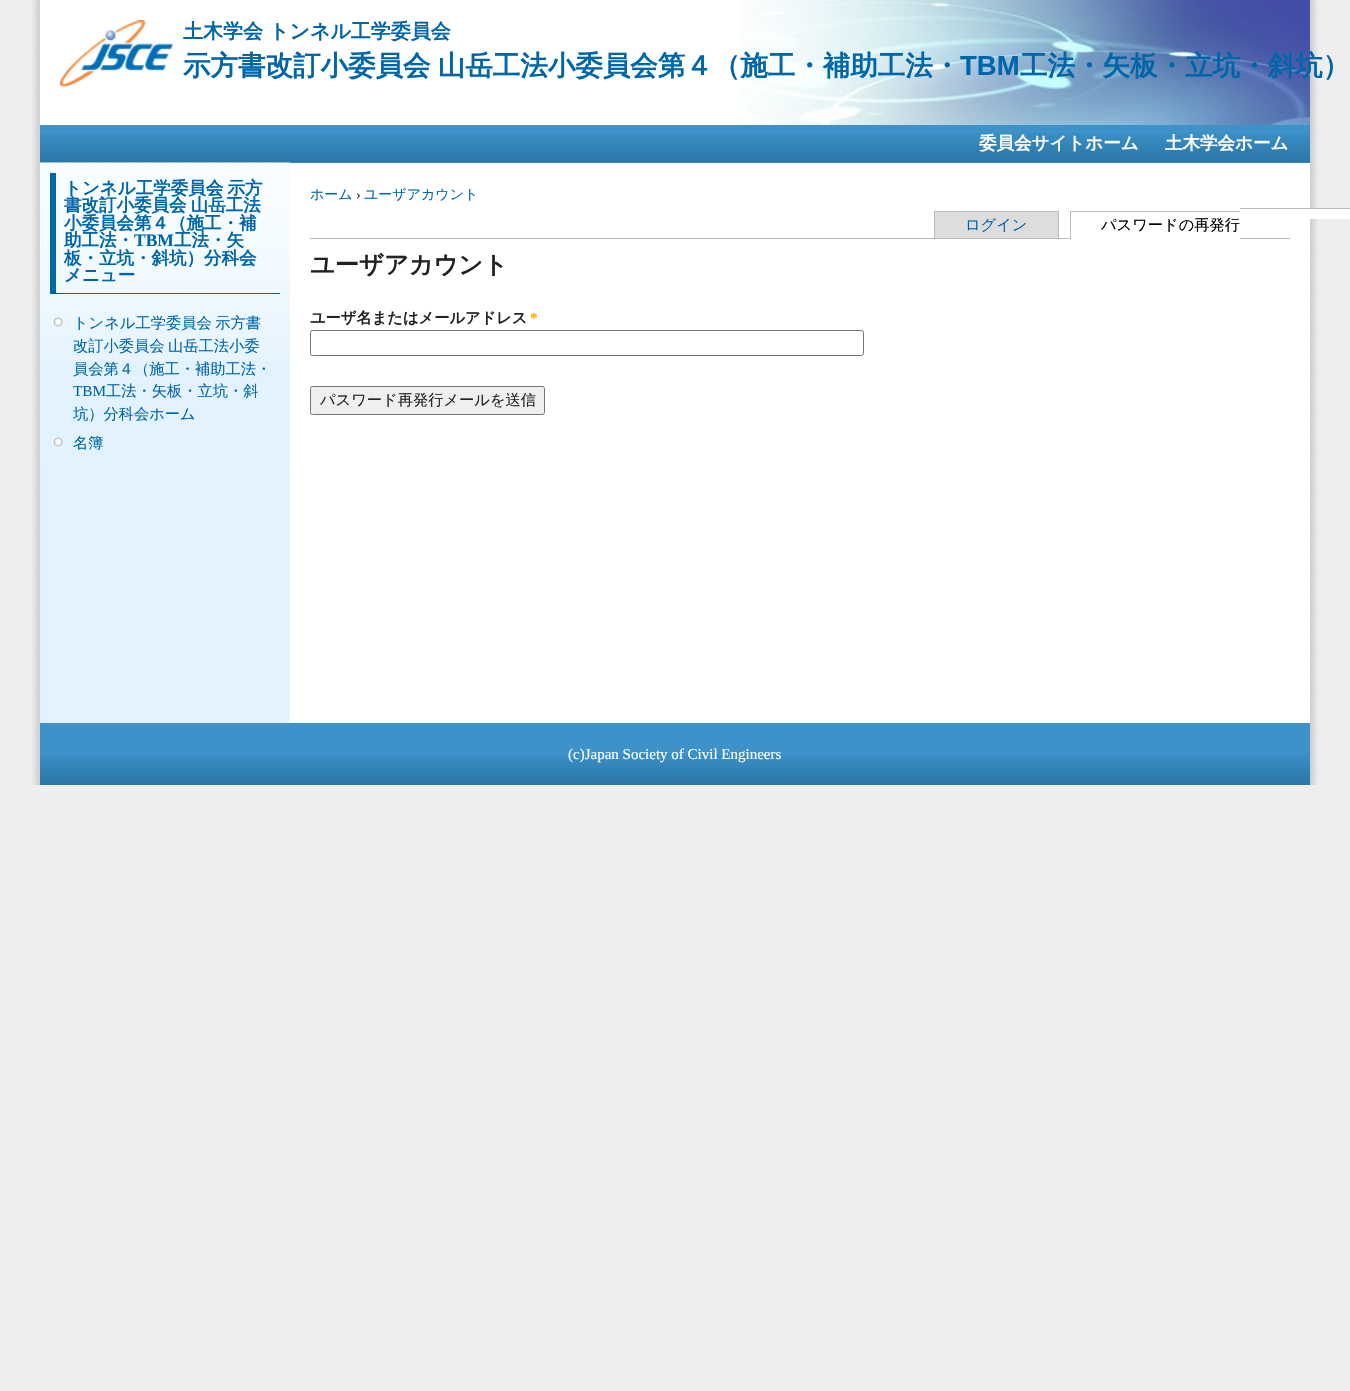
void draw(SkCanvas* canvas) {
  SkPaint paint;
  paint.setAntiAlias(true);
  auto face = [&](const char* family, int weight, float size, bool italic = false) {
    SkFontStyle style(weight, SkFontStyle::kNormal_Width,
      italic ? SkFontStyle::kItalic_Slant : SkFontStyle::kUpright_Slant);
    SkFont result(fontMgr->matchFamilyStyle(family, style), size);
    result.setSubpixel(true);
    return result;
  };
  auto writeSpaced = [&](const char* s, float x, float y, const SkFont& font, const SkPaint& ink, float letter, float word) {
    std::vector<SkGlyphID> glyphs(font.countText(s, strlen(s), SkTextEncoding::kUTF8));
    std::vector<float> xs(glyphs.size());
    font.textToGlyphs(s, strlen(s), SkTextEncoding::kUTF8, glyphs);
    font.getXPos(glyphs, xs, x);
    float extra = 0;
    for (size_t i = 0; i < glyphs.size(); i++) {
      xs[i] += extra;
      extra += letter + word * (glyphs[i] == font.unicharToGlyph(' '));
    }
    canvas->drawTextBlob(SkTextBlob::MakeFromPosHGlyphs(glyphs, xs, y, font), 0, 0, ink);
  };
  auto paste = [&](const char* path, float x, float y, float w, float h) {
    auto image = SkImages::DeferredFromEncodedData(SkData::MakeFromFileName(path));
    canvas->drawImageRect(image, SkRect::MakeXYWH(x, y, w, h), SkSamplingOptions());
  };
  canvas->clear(0xffeeeeee);
  paste("img/1.png", 32, 0, 258, 785);
  paste("img/2.png", 1310, 0, 40, 785);
  paint.setColor(0xffffffff);
  canvas->drawRect(SkRect::MakeXYWH(40, 0, 700, 125), paint);
  paste("img/3.png", 740, 0, 570, 125);
  paste("img/4.png", 60, 20, 113, 67);
  paint.setColor(0xff3d92c9);
  canvas->drawRect(SkRect::MakeXYWH(40, 125, 1270, 38), paint);
  paste("img/5.png", 40, 133, 1270, 30);
  paint.setColor(0xffe2f2ff);
  canvas->drawRect(SkRect::MakeXYWH(40, 361, 250, 107), paint);
  paste("img/6.png", 40, 162, 250, 199);
  paint.setColor(0xff0066aa);
  canvas->drawRect(SkRect::MakeXYWH(50, 293, 230, 1), paint);
  canvas->drawRect(SkRect::MakeXYWH(50, 173, 6, 121), paint);
  paste("img/7.png", 53, 317, 10, 10);
  paste("img/8.png", 53, 437, 10, 10);
  {
    const struct { float x, y, w, h; SkColor color; } items[] = {
      {290, 163, 1020, 560, 0xffffffff},
      {310, 238, 980, 1, 0xffbbbbbb},
      {935, 212, 123, 26, 0xffdddddd},
      {934, 211, 125, 1, 0xffbbbbbb},
      {1058, 211, 1, 27, 0xffbbbbbb},
      {934, 211, 1, 27, 0xffbbbbbb},
      {1071, 238, 169, 1, 0xffffffff},
      {1070, 211, 170, 1, 0xffbbbbbb},
      {1070, 211, 1, 28, 0xffbbbbbb},
      {1310, 209, 40, 10, 0xffffffff},
      {1240, 208, 110, 1, 0xffbbbbbb},
    };
    for (auto [x, y, w, h, color] : items) {
      paint.setColor(color);
      canvas->drawRect(SkRect::MakeXYWH(x, y, w, h), paint);
    }
  }
  paint.setStroke(true);
  paint.setStrokeWidth(1);
  paint.setColor(0xff767676);
  canvas->drawRoundRect(SkRect::MakeXYWH(310.5f, 330.5f, 553, 25), 2, 2, paint);
  paint.setStroke(false);
  paint.setColor(0xffefefef);
  canvas->drawRoundRect(SkRect::MakeXYWH(310.5f, 386.5f, 234, 28), 2, 2, paint);
  paint.setStroke(true);
  paint.setColor(0xff767676);
  canvas->drawRoundRect(SkRect::MakeXYWH(310.5f, 386.5f, 234, 28), 2, 2, paint);
  paint.setStroke(false);
  paint.setColor(0xff3d92c9);
  canvas->drawRect(SkRect::MakeXYWH(40, 723, 1270, 32), paint);
  paste("img/9.png", 40, 755, 1270, 30);
  auto f0 = face("WenQuanYi Zen Hei", 700, 20);
  paint.setColor(0xff0066aa);
  canvas->drawString("土木学会 トンネル工学委員会", 183, 38, f0, paint);
  auto f1 = face("WenQuanYi Zen Hei", 700, 27.5f);
  writeSpaced("示方書改訂小委員会 山岳工法小委員会第４（施工・補助工法・", 183, 75, f1, paint, 0, -1);
  auto f2 = face("Liberation Sans", 700, 27.5f);
  canvas->drawString("TBM", 960, 75, f2, paint);
  canvas->drawString("工法・矢板・立坑・斜坑）", 1020, 75, f1, paint);
  auto f3 = face("WenQuanYi Zen Hei", 700, 17.5f);
  paint.setColor(0xffffffff);
  canvas->drawString("委員会サイトホーム", 979, 149, f3, paint);
  canvas->drawString("土木学会ホーム", 1165, 149, f3, paint);
  paint.setColor(0xff0066aa);
  writeSpaced("トンネル工学委員会 示方", 64, 194, f3, paint, 0, -1);
  writeSpaced("書改訂小委員会 山岳工法", 64, 211, f3, paint, 0, -1);
  canvas->drawString("小委員会第４（施工・補", 64, 229, f3, paint);
  canvas->drawString("助工法・", 64, 246, f3, paint);
  auto f4 = face("Liberation Serif", 700, 17.5f);
  canvas->drawString("TBM", 134, 246, f4, paint);
  {
    const struct { const char* s; float x, y; } items[] = {
      {"工法・矢", 174, 246},
      {"板・立坑・斜坑）分科会", 64, 264},
      {"メニュー", 64, 281},
    };
    for (auto [s, x, y] : items) {
      canvas->drawString(s, x, y, f3, paint);
    }
  }
  auto f5 = face("WenQuanYi Zen Hei", 500, 15.25f);
  writeSpaced("トンネル工学委員会 示方書", 73, 328, f5, paint, 0, -1);
  writeSpaced("改訂小委員会 山岳工法小委", 73, 351, f5, paint, 0, -1);
  canvas->drawString("員会第４（施工・補助工法・", 73, 374, f5, paint);
  auto f6 = face("Liberation Serif", 400, 15.25f);
  canvas->drawString("TBM", 73, 396, f6, paint);
  {
    const struct { const char* s; float x, y; } items[] = {
      {"工法・矢板・立坑・斜", 106, 396},
      {"坑）分科会ホーム", 73, 419},
      {"名簿", 73, 448},
    };
    for (auto [s, x, y] : items) {
      canvas->drawString(s, x, y, f5, paint);
    }
  }
  auto f7 = face("WenQuanYi Zen Hei", 500, 14);
  canvas->drawString("ホーム", 310, 199, f7, paint);
  auto f8 = face("Liberation Serif", 400, 14);
  paint.setColor(0xff222222);
  canvas->drawString("›", 356, 199, f8, paint);
  paint.setColor(0xff0066aa);
  canvas->drawString("ユーザアカウント", 364, 199, f7, paint);
  canvas->drawString("ログイン", 965, 230, f5, paint);
  paint.setColor(0xff000000);
  canvas->drawString("パスワードの再発行", 1101, 230, f5, paint);
  auto f9 = face("WenQuanYi Zen Hei", 700, 24.25f);
  paint.setColor(0xff222222);
  canvas->drawString("ユーザアカウント", 310, 273, f9, paint);
  auto f10 = face("WenQuanYi Zen Hei", 700, 15.25f);
  canvas->drawString("ユーザ名またはメールアドレス", 310, 323, f10, paint);
  auto f11 = face("Liberation Serif", 700, 15.25f);
  paint.setColor(0xffffae00);
  canvas->drawString("*", 530, 323, f11, paint);
  paint.setColor(0xff222222);
  canvas->drawString("パスワード再発行メールを送信", 320, 405, f5, paint);
  auto f12 = face("Liberation Serif", 400, 15);
  paint.setColor(0xffffffff);
  canvas->drawString("(c)Japan Society of Civil Engineers", 568, 759, f12, paint);
}
